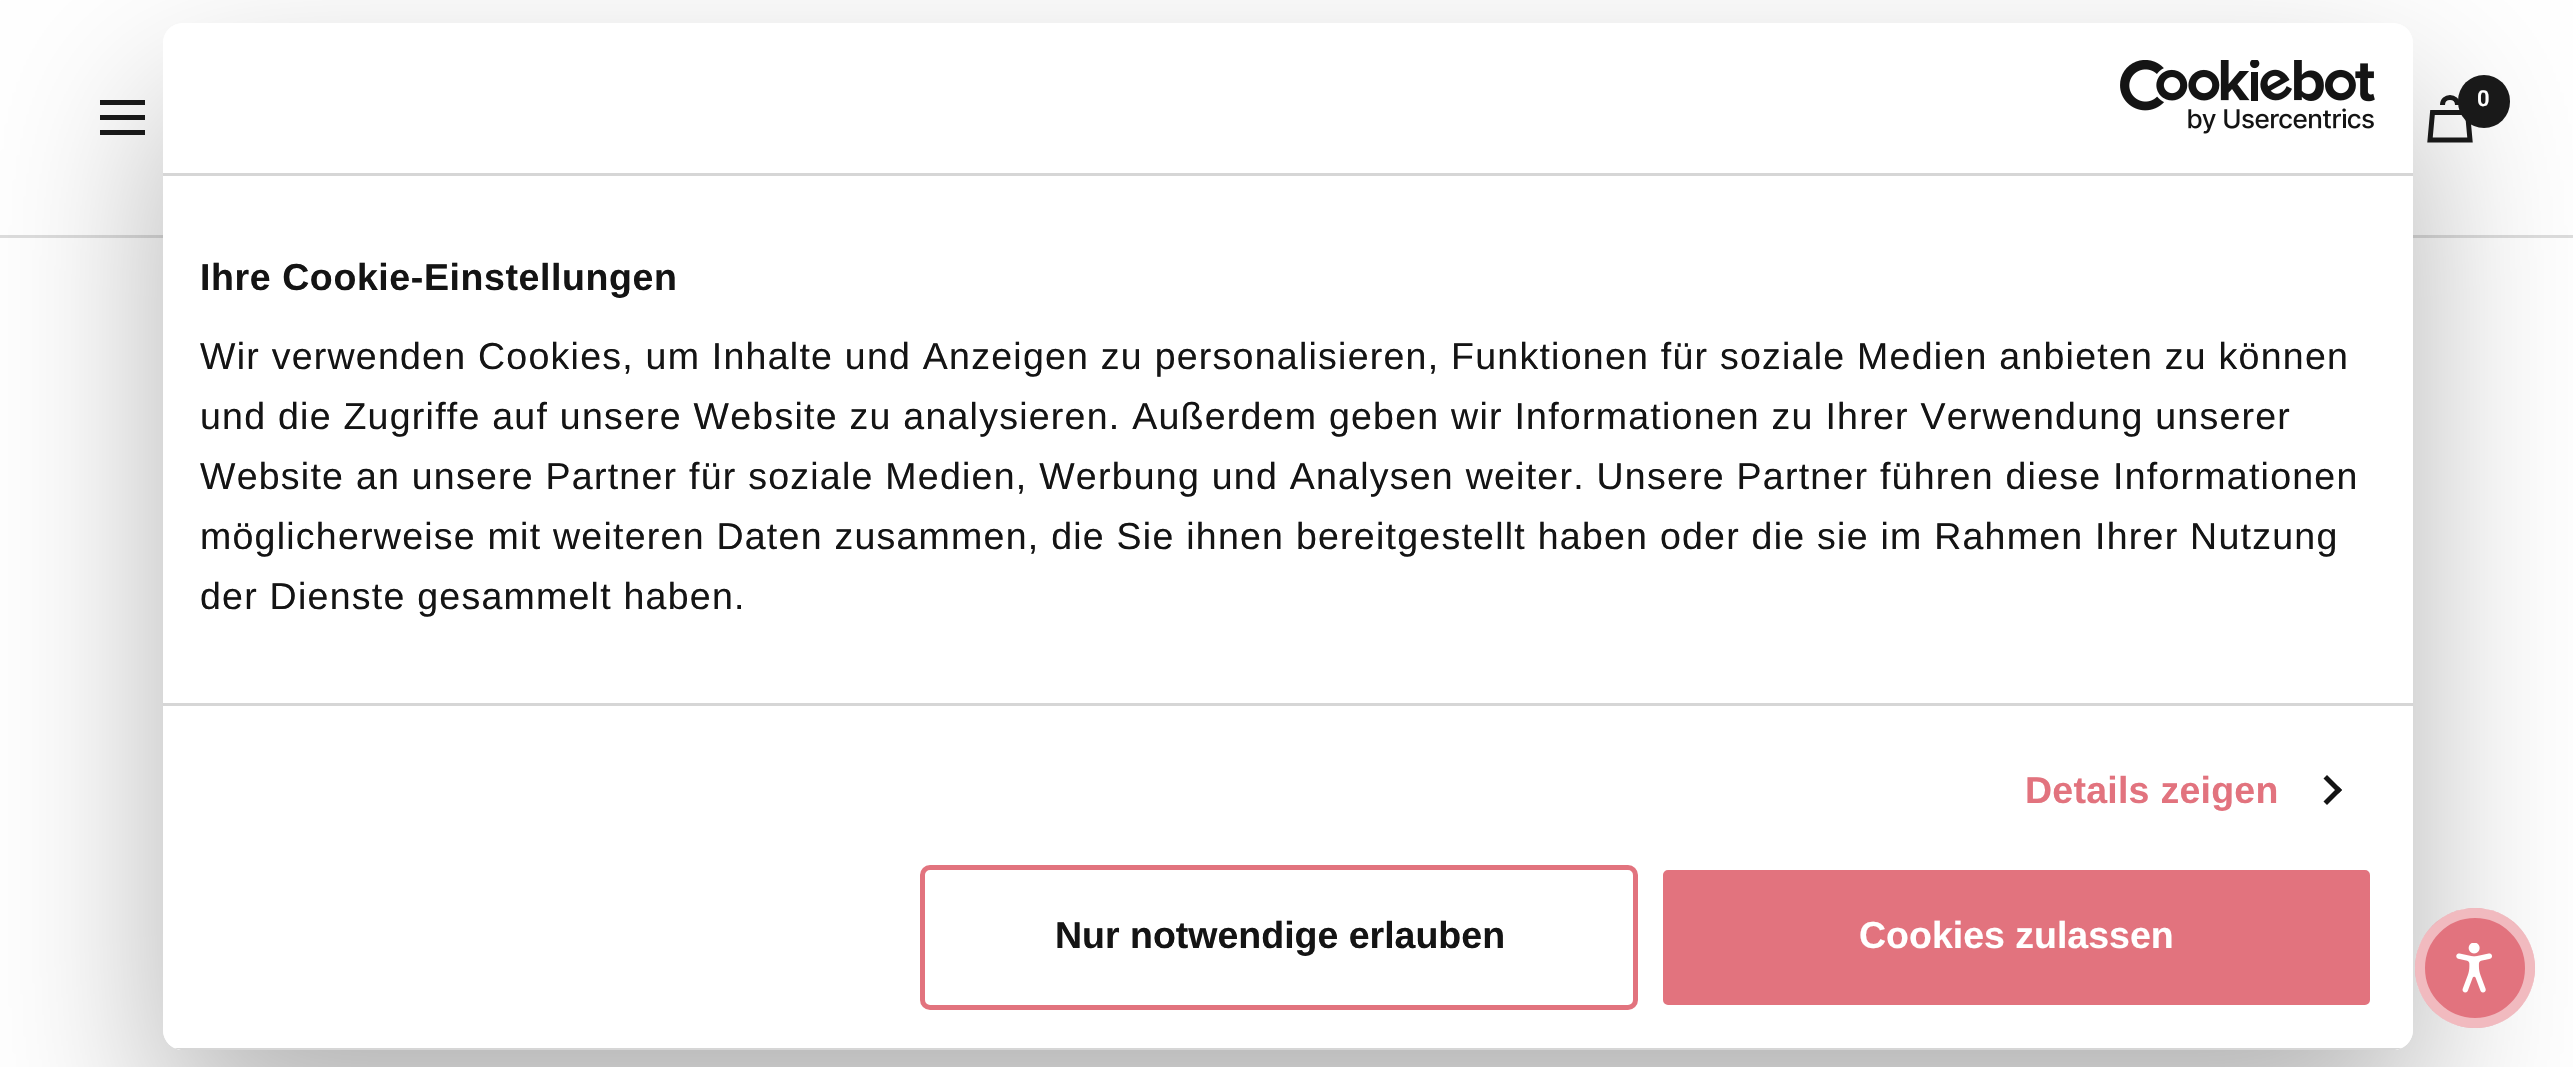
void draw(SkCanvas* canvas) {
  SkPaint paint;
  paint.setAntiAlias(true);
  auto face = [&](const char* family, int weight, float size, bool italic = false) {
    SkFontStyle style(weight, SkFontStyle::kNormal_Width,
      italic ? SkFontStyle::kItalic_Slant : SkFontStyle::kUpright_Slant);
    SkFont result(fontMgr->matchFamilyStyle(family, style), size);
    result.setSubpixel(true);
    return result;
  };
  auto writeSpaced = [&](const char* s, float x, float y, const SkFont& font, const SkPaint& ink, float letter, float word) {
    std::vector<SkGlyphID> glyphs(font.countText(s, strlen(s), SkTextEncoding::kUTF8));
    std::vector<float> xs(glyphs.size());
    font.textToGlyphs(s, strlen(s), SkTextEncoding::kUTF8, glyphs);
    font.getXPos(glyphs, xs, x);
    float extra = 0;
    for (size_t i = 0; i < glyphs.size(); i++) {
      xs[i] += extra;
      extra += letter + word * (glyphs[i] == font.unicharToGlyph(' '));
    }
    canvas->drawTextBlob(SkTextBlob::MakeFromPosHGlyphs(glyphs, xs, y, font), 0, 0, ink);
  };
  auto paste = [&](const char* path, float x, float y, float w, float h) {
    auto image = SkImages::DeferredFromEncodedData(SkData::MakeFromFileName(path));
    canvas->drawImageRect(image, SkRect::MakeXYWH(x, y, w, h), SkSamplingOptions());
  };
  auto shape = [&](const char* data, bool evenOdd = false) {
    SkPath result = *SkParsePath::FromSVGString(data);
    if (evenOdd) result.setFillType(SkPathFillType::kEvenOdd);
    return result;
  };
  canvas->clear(0xffffffff);
  paint.setColor(0xffdddddd);
  canvas->drawRect(SkRect::MakeXYWH(0, 235, 2573, 3), paint);
  paint.setStroke(true);
  paint.setStrokeWidth(5);
  paint.setColor(0xff1a1a1a);
  canvas->drawPath(shape("M2432.5 112.5H2467.5L2470 140H2430ZM2457.5 105C2457.5 95 2442.5 95 2442.5 105"), paint);
  paint.setStroke(false);
  canvas->drawRoundRect(SkRect::MakeXYWH(2458, 75, 52, 53), 26, 26, paint);
  paint.setStroke(true);
  canvas->drawPath(shape("M100 102.5H145M100 132.5H145ZM100 117.5H145Z"), paint);
  canvas->save();
  canvas->clipPath(shape("M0 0H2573V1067H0ZM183 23H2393C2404 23 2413 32 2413 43V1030C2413 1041 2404 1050 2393 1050H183C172 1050 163 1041 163 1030V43C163 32 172 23 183 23Z", true), true);
  paint.setStroke(false);
  paint.setColor(0x4d000000);
  paint.setMaskFilter(SkMaskFilter::MakeBlur(kNormal_SkBlurStyle, 85));
  canvas->drawRoundRect(SkRect::MakeXYWH(163, 103, 2250, 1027), 20, 20, paint);
  paint.setMaskFilter(nullptr);
  canvas->restore();
  paint.setColor(0xffffffff);
  canvas->drawRoundRect(SkRect::MakeXYWH(163, 23, 2250, 1027), 20, 20, paint);
  paint.setColor(0xffd6d6d6);
  canvas->drawRect(SkRect::MakeXYWH(163, 173, 2250, 3), paint);
  paste("img/1.png", 2120, 60, 255, 74);
  canvas->drawRect(SkRect::MakeXYWH(163, 703, 2250, 3), paint);
  paint.setColor(0xff141414);
  canvas->drawPath(shape("M2327 775L2342 790L2338.5 793.5L2323.5 778.5Z"), paint);
  canvas->drawPath(shape("M2338.5 786.5L2342 790L2327 805L2323.5 801.5Z"), paint);
  canvas->save();
  canvas->clipPath(shape("M183 23H2393C2404 23 2413 32 2413 43V1030C2413 1041 2404 1050 2393 1050H183C172 1050 163 1041 163 1030V43C163 32 172 23 183 23Z"), true);
  paint.setColor(0xffd6d6d6);
  canvas->drawRect(SkRect::MakeXYWH(174, 1048, 2228, 2), paint);
  canvas->restore();
  paint.setStroke(true);
  paint.setColor(0xffe2737e);
  canvas->drawRoundRect(SkRect::MakeXYWH(922.5f, 867.5f, 713, 140), 7.5f, 7.5f, paint);
  paint.setStroke(false);
  canvas->drawRoundRect(SkRect::MakeXYWH(1660.5f, 867.5f, 712, 140), 7.5f, 7.5f, paint);
  paint.setStroke(true);
  paint.setColor(0xffffffff);
  canvas->drawRoundRect(SkRect::MakeXYWH(1660.5f, 867.5f, 712, 140), 7.5f, 7.5f, paint);
  paint.setStroke(false);
  paint.setColor(0xffe2737e);
  canvas->drawCircle(2475, 968, 60, paint);
  paint.setStroke(true);
  paint.setStrokeWidth(10);
  paint.setColor(0x80ffffff);
  canvas->drawCircle(2475, 968, 55, paint);
  paste("img/2.png", 2456, 943, 36, 50);
  auto f0 = face("Roboto", 600, 22);
  paint.setStroke(false);
  paint.setColor(0xffffffff);
  canvas->drawString("0", 2477, 106, f0, paint);
  auto f1 = face("Liberation Sans", 700, 37.5f);
  paint.setColor(0xff141414);
  writeSpaced("Ihre Cookie-Einstellungen", 200, 290, f1, paint, 0.6f, 0);
  auto f2 = face("Liberation Sans", 400, 37.5f);
  {
    const struct { const char* s; float x, y; } items[] = {
      {"Wir verwenden Cookies, um Inhalte und Anzeigen zu personalisieren, Funktionen für soziale Medien anbieten zu können", 200, 369},
      {"und die Zugriffe auf unsere Website zu analysieren. Außerdem geben wir Informationen zu Ihrer Verwendung unserer", 200, 429},
      {"Website an unsere Partner für soziale Medien, Werbung und Analysen weiter. Unsere Partner führen diese Informationen", 200, 489},
      {"möglicherweise mit weiteren Daten zusammen, die Sie ihnen bereitgestellt haben oder die sie im Rahmen Ihrer Nutzung", 200, 549},
      {"der Dienste gesammelt haben.", 200, 609},
    };
    for (auto [s, x, y] : items) {
      writeSpaced(s, x, y, f2, paint, 1.25f, 0);
    }
  }
  paint.setColor(0xffe2737e);
  writeSpaced("Details zeigen", 2025, 803, f1, paint, 0.25f, 0);
  paint.setColor(0xff141414);
  canvas->drawString("Nur notwendige erlauben", 1055, 948, f1, paint);
  paint.setColor(0xffffffff);
  canvas->drawString("Cookies zulassen", 1859, 948, f1, paint);
}
